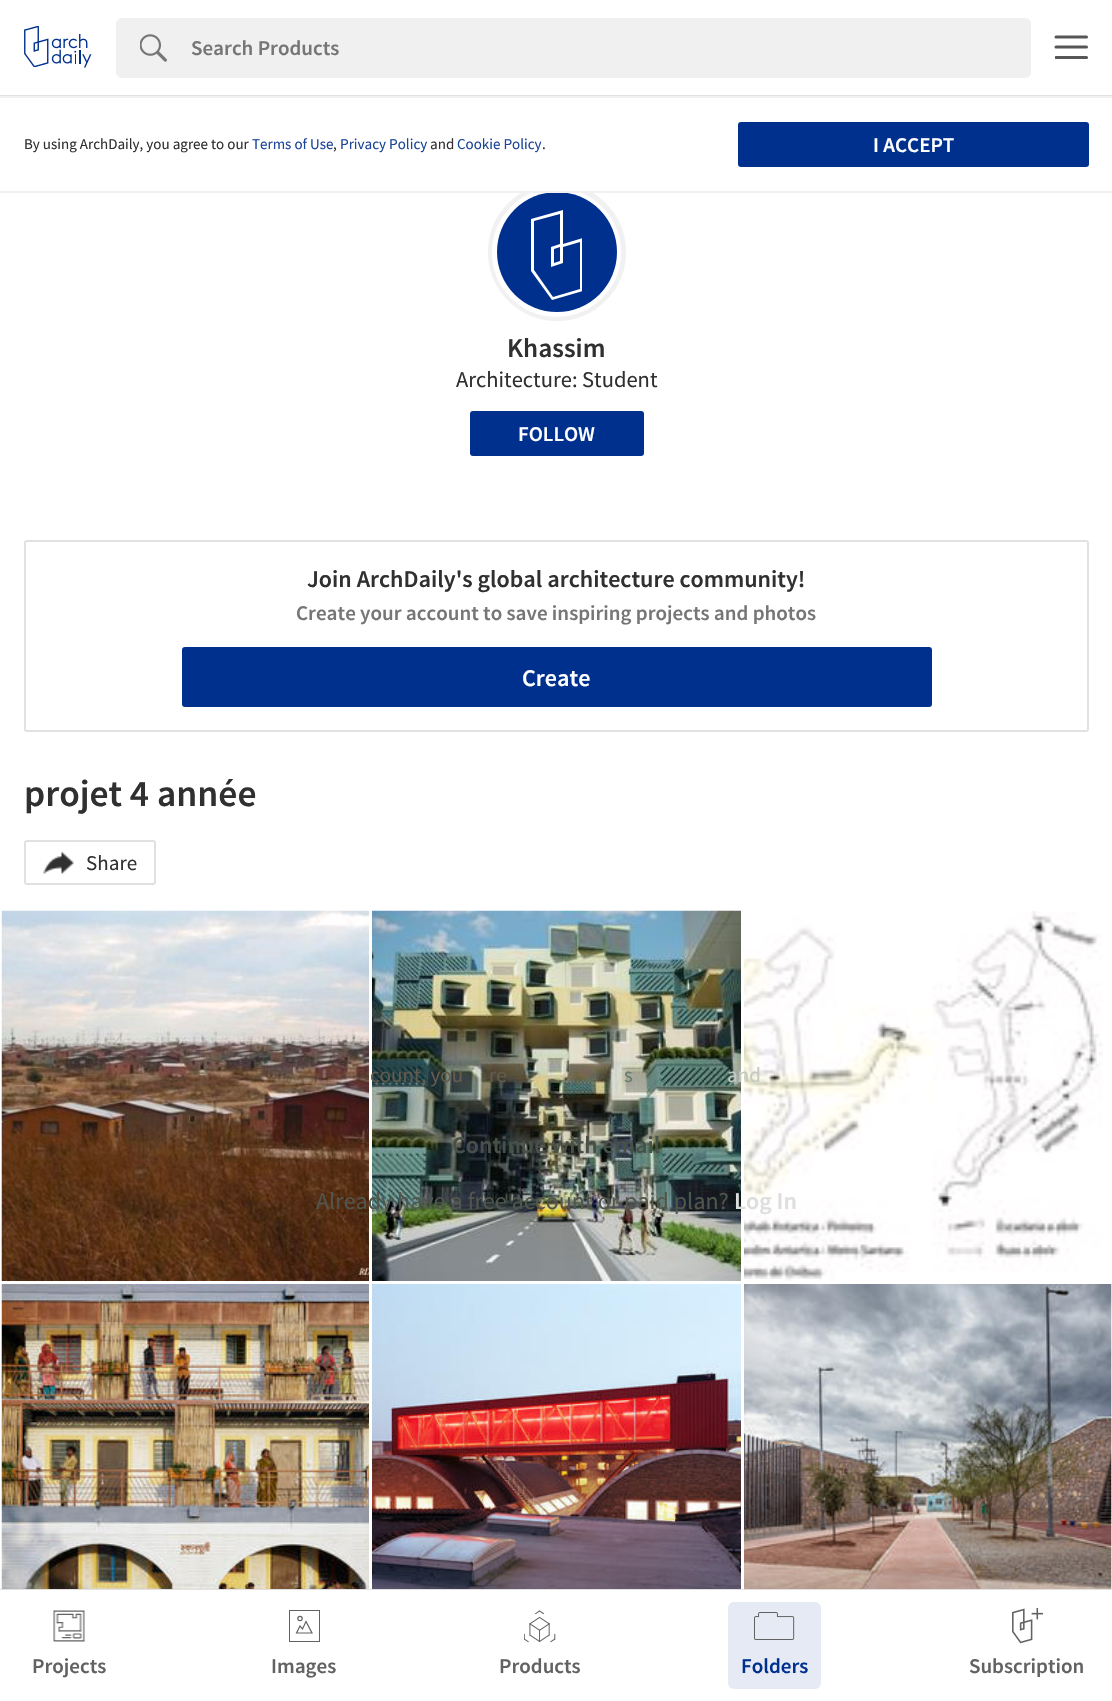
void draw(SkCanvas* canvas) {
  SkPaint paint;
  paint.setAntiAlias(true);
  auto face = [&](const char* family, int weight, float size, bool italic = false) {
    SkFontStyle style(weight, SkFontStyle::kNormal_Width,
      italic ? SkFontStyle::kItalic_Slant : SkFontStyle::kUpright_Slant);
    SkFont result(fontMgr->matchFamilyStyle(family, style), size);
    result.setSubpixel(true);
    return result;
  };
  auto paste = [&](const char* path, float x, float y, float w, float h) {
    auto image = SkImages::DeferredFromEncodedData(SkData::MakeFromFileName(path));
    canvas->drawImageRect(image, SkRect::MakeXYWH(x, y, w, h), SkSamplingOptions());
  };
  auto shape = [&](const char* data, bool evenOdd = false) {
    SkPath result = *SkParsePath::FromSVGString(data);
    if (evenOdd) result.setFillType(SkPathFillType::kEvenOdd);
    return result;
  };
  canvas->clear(0xffffffff);
  paint.setColor(0xffe1e1e1);
  canvas->drawRect(SkRect::MakeXYWH(0, 95, 1112, 1), paint);
  paste("img/1.png", 24, 26, 68, 42);
  paint.setColor(0xfff0f0f0);
  canvas->drawRoundRect(SkRect::MakeXYWH(116, 18, 915, 60), 6, 6, paint);
  paste("img/2.png", 140, 34, 27, 28);
  canvas->drawPath(shape("M191 18H1025C1028.5 18 1031 20.5 1031 24V72C1031 75.5 1028.5 78 1025 78H191Z"), paint);
  paint.setStroke(true);
  paint.setStrokeWidth(3);
  paint.setStrokeCap(SkPaint::kRound_Cap);
  paint.setColor(0xff565656);
  canvas->drawPath(shape("M1056 37H1086.5M1056 47H1086.5"), paint);
  canvas->save();
  canvas->clipRect(SkRect::MakeXYWH(1055, 35, 34, 25));
  canvas->drawPath(shape("M1056 57.5H1086.5"), paint);
  canvas->restore();
  paint.setStrokeWidth(9);
  paint.setStrokeCap(SkPaint::kButt_Cap);
  paint.setColor(0xfff1f1f1);
  canvas->drawCircle(557, 252, 64.5f, paint);
  paint.setStrokeWidth(5);
  paint.setColor(0xffffffff);
  canvas->drawCircle(556.5f, 252.5f, 62, paint);
  paint.setStroke(false);
  canvas->drawRect(SkRect::MakeXYWH(525, 183, 64, 8), paint);
  paint.setColor(0xfff1f1f1);
  canvas->drawRect(SkRect::MakeXYWH(0, 96, 1112, 2), paint);
  paint.setColor(0xff00308e);
  canvas->drawCircle(557, 252, 60, paint);
  paint.setColor(0xfff1f1f1);
  canvas->drawRect(SkRect::MakeXYWH(0, 191, 1112, 2), paint);
  paint.setColor(0xff00308e);
  canvas->drawRoundRect(SkRect::MakeXYWH(738, 122, 351, 45), 3, 3, paint);
  canvas->save();
  canvas->clipRect(SkRect::MakeXYWH(531, 210, 51, 90));
  paint.setColor(0xffffffff);
  canvas->drawPath(shape("M552 300L531 271V219L563 210V244L583 238V291ZM534 270L553 297L580 289V242L563 247V263L551 267V247L560 244V214L534 221ZM554 249V263L560 261V247Z"), paint);
  canvas->restore();
  paint.setColor(0xff00308e);
  canvas->drawRoundRect(SkRect::MakeXYWH(470, 411, 174, 45), 3, 3, paint);
  paint.setStroke(true);
  paint.setStrokeWidth(2);
  paint.setColor(0xffe1e1e1);
  canvas->drawRoundRect(SkRect::MakeXYWH(25, 541, 1063, 190), 2, 2, paint);
  paint.setStroke(false);
  paint.setColor(0xff00308e);
  canvas->drawRoundRect(SkRect::MakeXYWH(182, 647, 750, 60), 3, 3, paint);
  paint.setStroke(true);
  paint.setColor(0xffe1e1e1);
  canvas->drawRoundRect(SkRect::MakeXYWH(25, 841, 130, 43), 2, 2, paint);
  paste("img/3.png", 43, 851, 31, 24);
  paste("img/4.png", 1, 910, 368, 371);
  paste("img/5.png", 372, 910, 369, 371);
  paste("img/6.png", 744, 911, 359, 370);
  paste("img/7.png", 1, 1284, 368, 305);
  paste("img/8.png", 372, 1284, 369, 305);
  paste("img/9.png", 744, 1284, 368, 305);
  paint.setStroke(false);
  canvas->drawRect(SkRect::MakeXYWH(0, 1589, 1112, 1), paint);
  paste("img/10.png", 53, 1610, 32, 32);
  paint.setStroke(true);
  paint.setStrokeWidth(1);
  paint.setColor(0xff626262);
  canvas->drawRect(SkRect::MakeXYWH(289.5f, 1610.5f, 30, 31), paint);
  paint.setStrokeWidth(1.2f);
  paint.setStrokeCap(SkPaint::kRound_Cap);
  canvas->drawPath(shape("M306 1621.5L312 1633H296.5L300 1626L302.5 1629Z"), paint);
  paint.setStrokeCap(SkPaint::kButt_Cap);
  canvas->drawCircle(300, 1618.5f, 2.2f, paint);
  paste("img/11.png", 524, 1610, 32, 33);
  paint.setStroke(false);
  paint.setColor(0xffe5eaf4);
  canvas->drawRoundRect(SkRect::MakeXYWH(728, 1602, 93, 87), 6, 6, paint);
  paste("img/12.png", 754, 1612, 41, 28);
  paste("img/13.png", 1012, 1608, 31, 36);
  auto f0 = face("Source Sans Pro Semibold", 600, 21);
  paint.setColor(0xff767676);
  canvas->drawString("Search Products", 191, 55, f0, paint);
  auto f1 = face("Source Sans Pro", 400, 15);
  paint.setColor(0xff303030);
  canvas->drawString("By using ArchDaily, you agree to our", 24, 149, f1, paint);
  paint.setColor(0xff1a4599);
  canvas->drawString("Terms of Use", 252, 149, f1, paint);
  paint.setColor(0xff303030);
  canvas->drawString(",", 333, 149, f1, paint);
  paint.setColor(0xff1a4599);
  canvas->drawString("Privacy Policy", 340, 149, f1, paint);
  paint.setColor(0xff303030);
  canvas->drawString("and", 430, 149, f1, paint);
  paint.setColor(0xff1a4599);
  canvas->drawString("Cookie Policy", 457, 149, f1, paint);
  paint.setColor(0xff303030);
  canvas->drawString(".", 542, 149, f1, paint);
  paint.setColor(0xffffffff);
  canvas->drawString("I ACCEPT", 873, 152, f0, paint);
  auto f2 = face("Source Sans Pro Semibold", 600, 27);
  paint.setColor(0xff303030);
  canvas->drawString("Khassim", 507, 357, f2, paint);
  auto f3 = face("Source Sans Pro", 400, 22.5f);
  canvas->drawString("Architecture: Student", 456, 387, f3, paint);
  paint.setColor(0xffffffff);
  canvas->drawString("FOLLOW", 518, 441, f0, paint);
  auto f4 = face("Source Sans Pro Semibold", 600, 24);
  paint.setColor(0xff303030);
  canvas->drawString("Join ArchDaily's global architecture community!", 307, 587, f4, paint);
  paint.setColor(0xff767676);
  canvas->drawString("Create your account to save inspiring projects and photos", 296, 620, f0, paint);
  paint.setColor(0xffffffff);
  canvas->drawString("Create", 522, 686, f4, paint);
  auto f5 = face("Source Sans Pro Semibold", 600, 37.5f);
  paint.setColor(0xff303030);
  canvas->drawString("projet 4 année", 24, 806, f5, paint);
  auto f6 = face("Source Sans Pro", 400, 21);
  canvas->drawString("Share", 86, 870, f6, paint);
  paint.setColor(0xff645c4e);
  canvas->drawString("count, you", 370, 1082, f6, paint);
  canvas->drawString("re", 489, 1082, f6, paint);
  paint.setColor(0xff6a7b6f);
  canvas->drawString("s", 624, 1082, f6, paint);
  paint.setColor(0xffc3c9bf);
  canvas->drawString("and", 727, 1082, f6, paint);
  paint.setColor(0xff48504a);
  canvas->drawString("Continue with email", 452, 1153, f4, paint);
  auto f7 = face("Source Sans Pro", 400, 24);
  paint.setColor(0xff52554c);
  canvas->drawString("Already have a free account or paid plan?", 316, 1209, f7, paint);
  paint.setColor(0xffdddede);
  canvas->drawString("Log In", 734, 1209, f4, paint);
  paint.setColor(0xff626262);
  {
    const struct { const char* s; float x, y; } items[] = {
      {"Projects", 32, 1673},
      {"Images", 271, 1673},
      {"Products", 499, 1673},
    };
    for (auto [s, x, y] : items) {
      canvas->drawString(s, x, y, f0, paint);
    }
  }
  paint.setColor(0xff00308e);
  canvas->drawString("Folders", 741, 1673, f0, paint);
  paint.setColor(0xff626262);
  canvas->drawString("Subscription", 969, 1673, f0, paint);
}
